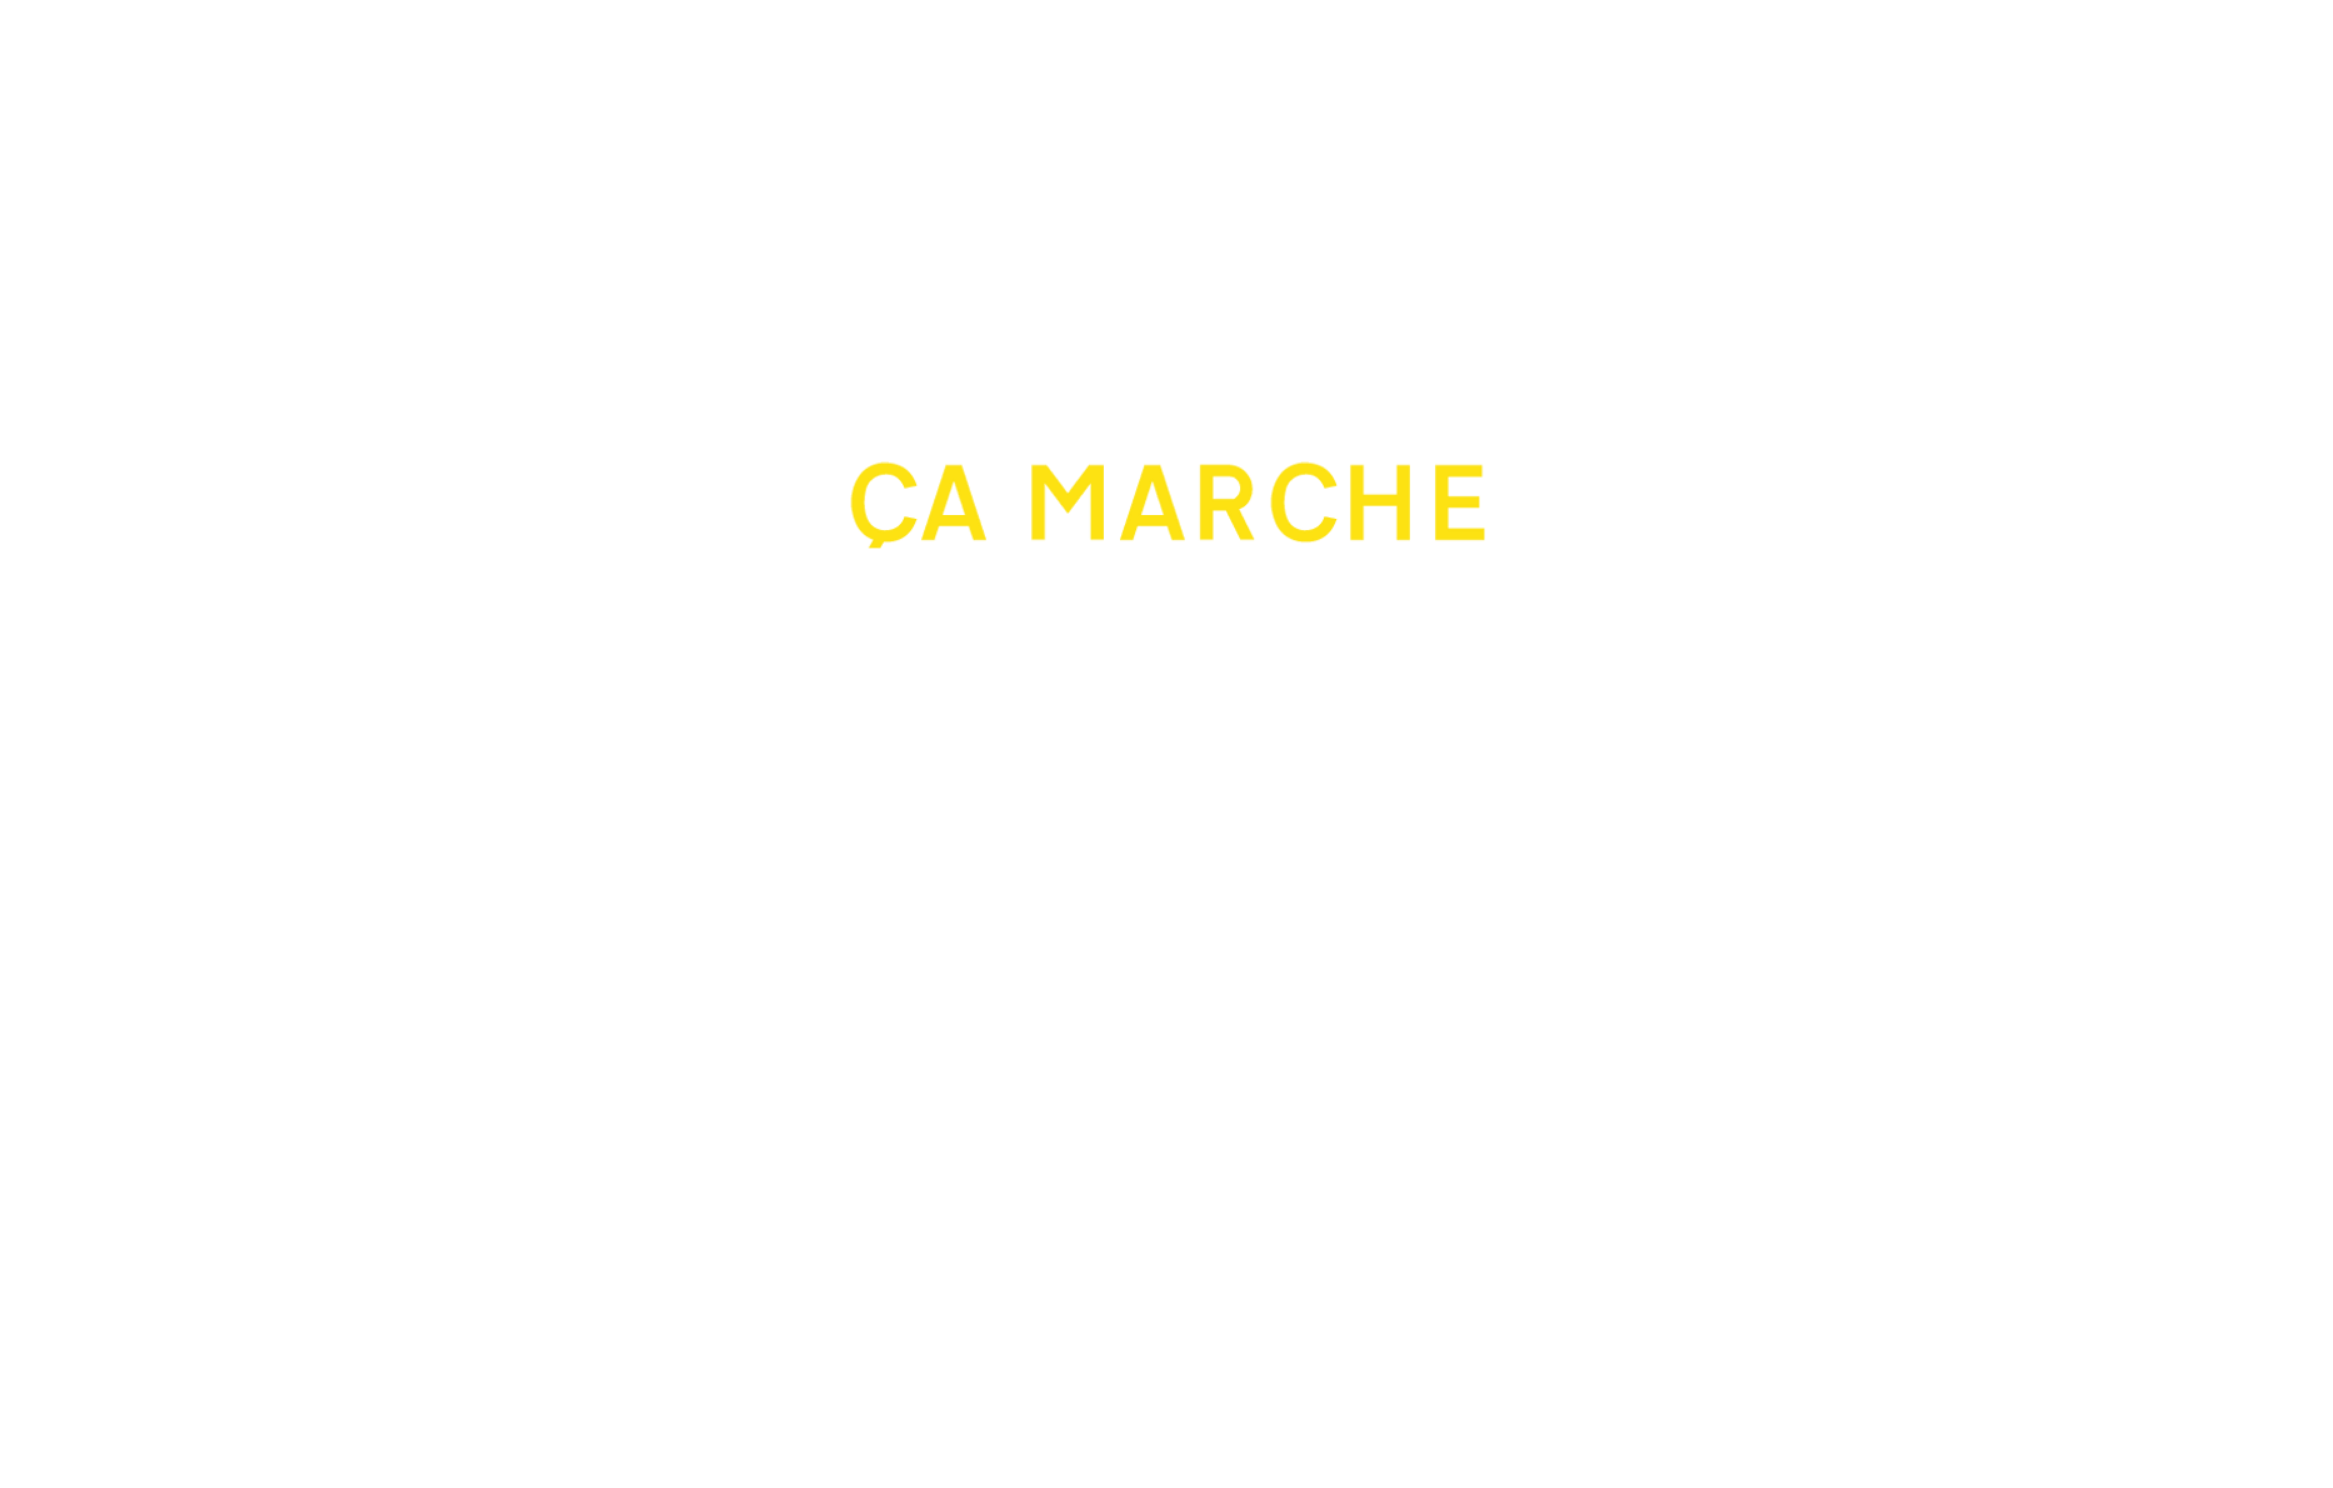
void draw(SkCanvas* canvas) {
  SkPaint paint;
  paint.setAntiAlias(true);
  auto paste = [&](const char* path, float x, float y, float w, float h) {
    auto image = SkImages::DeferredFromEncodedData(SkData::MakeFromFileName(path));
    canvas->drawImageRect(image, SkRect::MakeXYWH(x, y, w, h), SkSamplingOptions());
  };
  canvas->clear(0xffffffff);
  paste("img/1.png", 850, 461, 636, 88);
}
